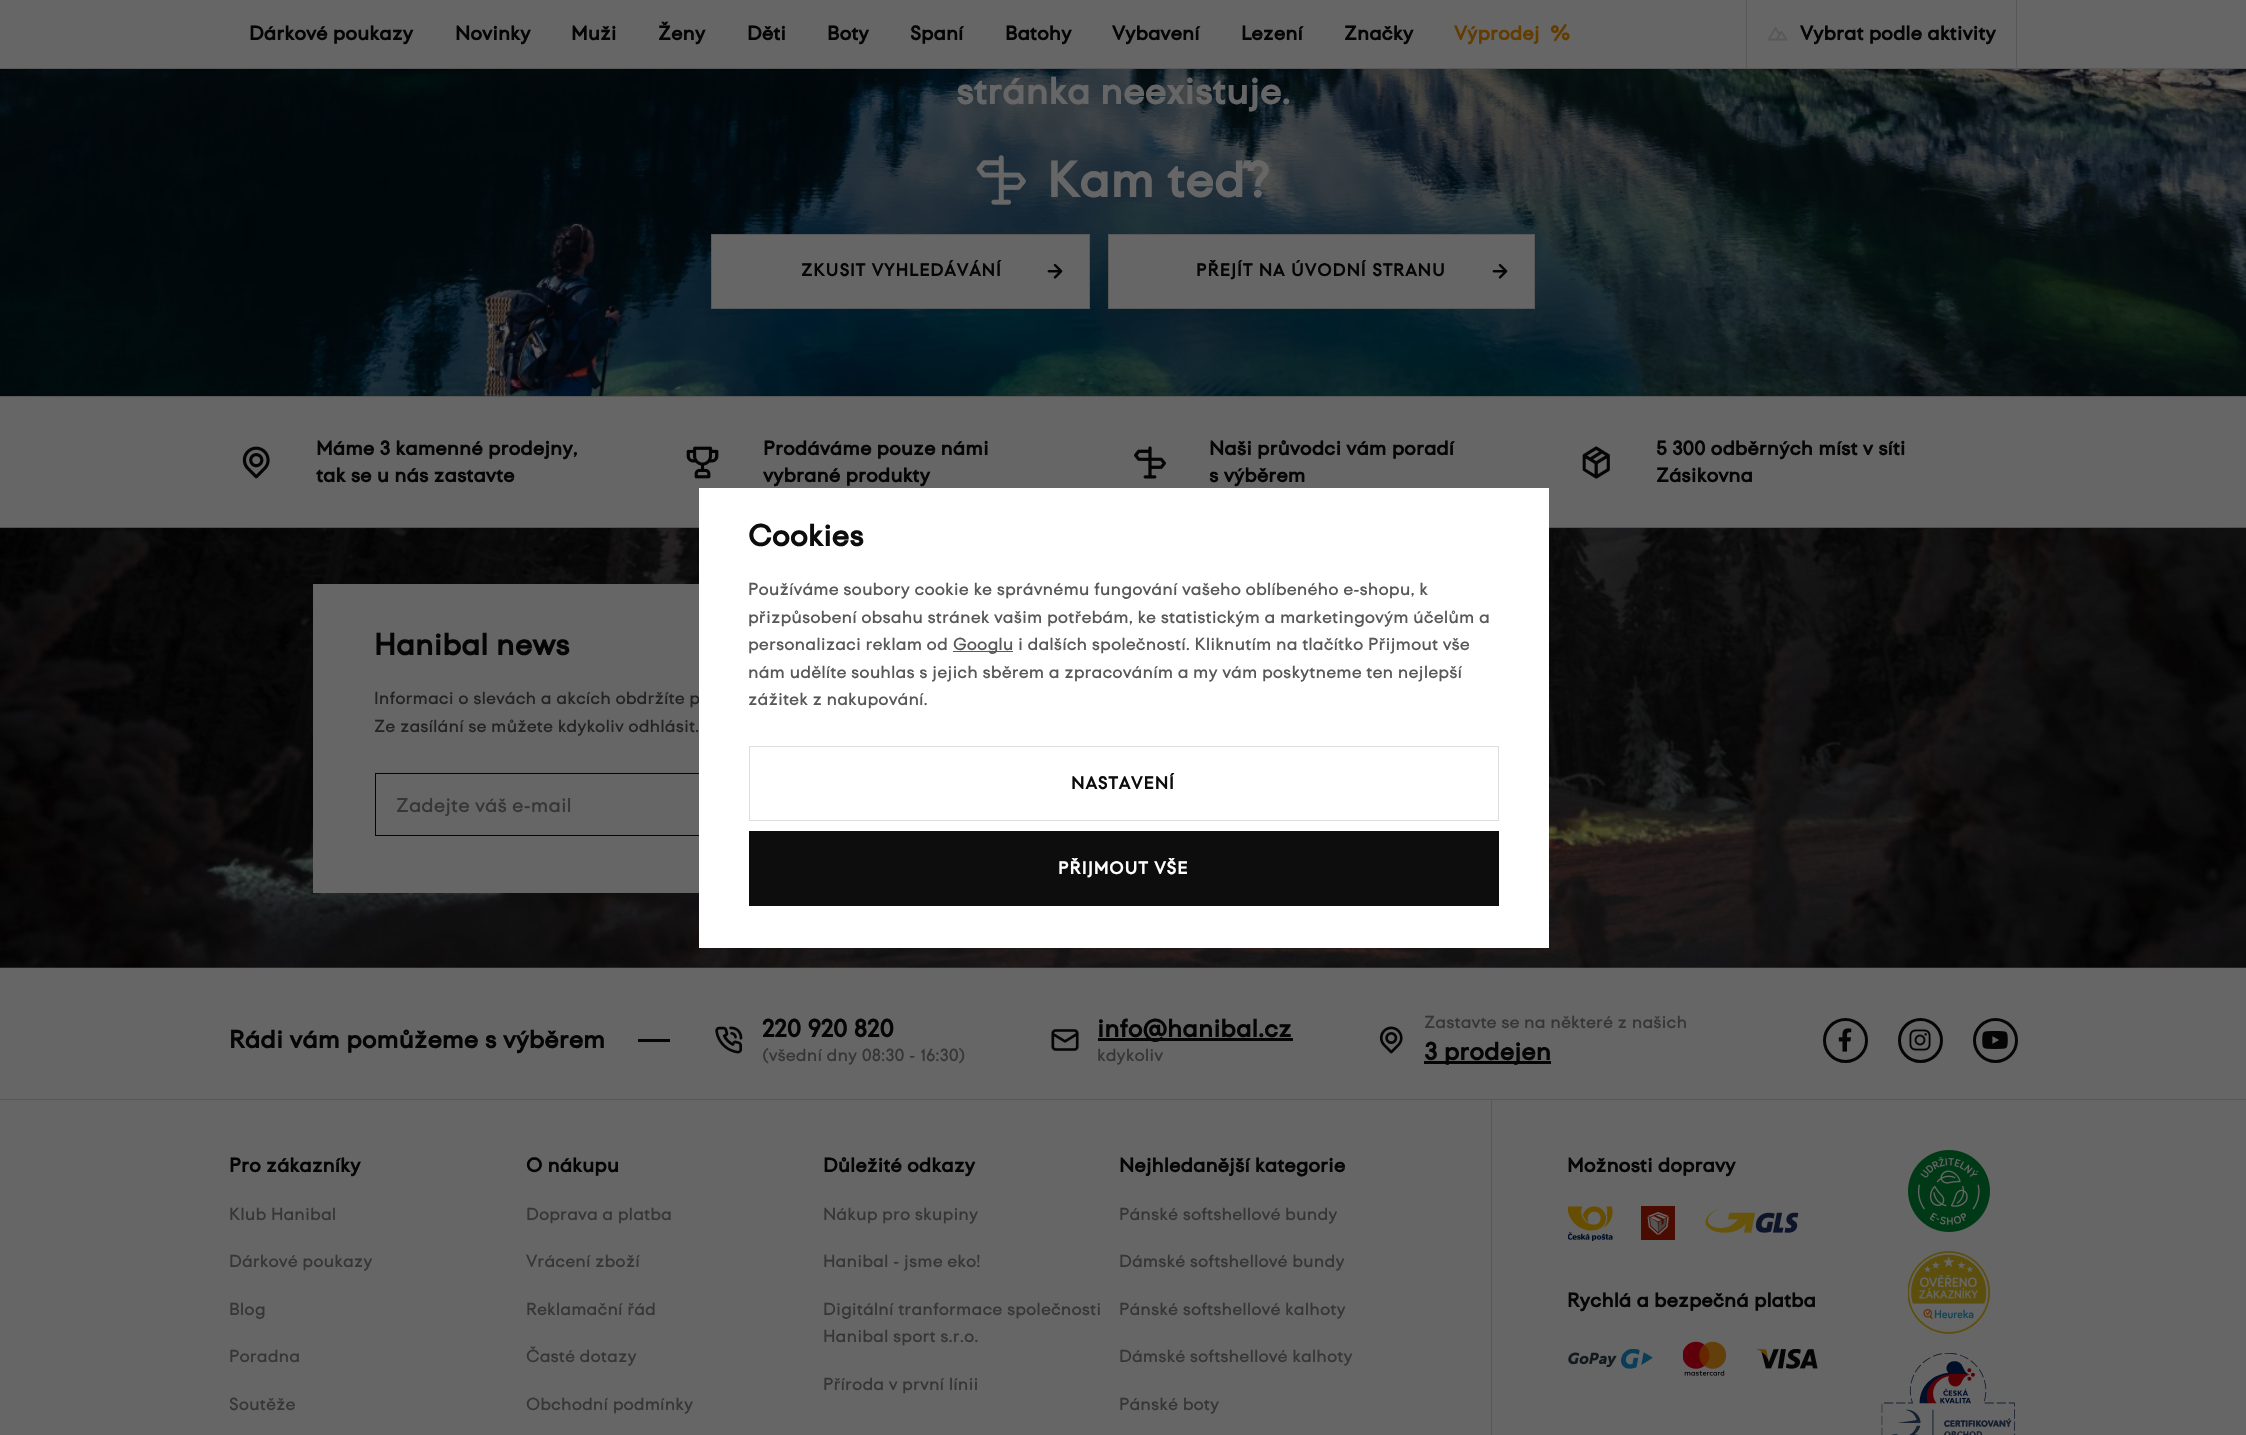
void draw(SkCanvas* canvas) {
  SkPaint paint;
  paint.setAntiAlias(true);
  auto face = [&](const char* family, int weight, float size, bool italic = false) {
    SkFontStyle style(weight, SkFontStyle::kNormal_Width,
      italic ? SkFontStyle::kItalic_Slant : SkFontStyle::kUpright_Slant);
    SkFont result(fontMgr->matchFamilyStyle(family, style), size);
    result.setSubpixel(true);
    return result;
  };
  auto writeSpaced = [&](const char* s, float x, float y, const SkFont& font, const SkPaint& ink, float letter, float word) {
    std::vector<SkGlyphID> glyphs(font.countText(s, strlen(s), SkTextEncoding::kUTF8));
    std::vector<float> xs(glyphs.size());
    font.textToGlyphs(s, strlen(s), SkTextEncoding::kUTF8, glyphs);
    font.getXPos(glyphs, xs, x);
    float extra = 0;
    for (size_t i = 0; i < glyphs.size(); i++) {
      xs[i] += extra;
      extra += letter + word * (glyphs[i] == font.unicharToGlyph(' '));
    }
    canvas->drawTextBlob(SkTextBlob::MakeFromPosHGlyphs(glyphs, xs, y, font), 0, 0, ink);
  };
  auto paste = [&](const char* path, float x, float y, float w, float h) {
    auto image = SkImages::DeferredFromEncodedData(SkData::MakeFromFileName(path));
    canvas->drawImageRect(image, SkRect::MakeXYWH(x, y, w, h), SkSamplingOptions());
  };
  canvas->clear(0xff666666);
  {
    const struct { float x, y, w, h; SkColor color; } items[] = {
      {0, 68, 2246, 1, 0xff585858},
      {2016, 0, 1, 68, 0xff585858},
      {1746, 0, 1, 68, 0xff585858},
    };
    for (auto [x, y, w, h, color] : items) {
      paint.setColor(color);
      canvas->drawRect(SkRect::MakeXYWH(x, y, w, h), paint);
    }
  }
  paste("img/1.png", 1767, 27, 21, 14);
  paste("img/2.png", 0, 69, 2246, 327);
  paste("img/3.png", 976, 155, 50, 50);
  paint.setColor(0xff666666);
  canvas->drawRect(SkRect::MakeXYWH(711.5f, 234.5f, 378, 74), paint);
  paint.setStroke(true);
  paint.setStrokeWidth(1);
  paint.setColor(0xff585858);
  canvas->drawRect(SkRect::MakeXYWH(711.5f, 234.5f, 378, 74), paint);
  paste("img/4.png", 1047, 263, 16, 16);
  paint.setStroke(false);
  paint.setColor(0xff666666);
  canvas->drawRect(SkRect::MakeXYWH(1108.5f, 234.5f, 426, 74), paint);
  paint.setStroke(true);
  paint.setColor(0xff585858);
  canvas->drawRect(SkRect::MakeXYWH(1108.5f, 234.5f, 426, 74), paint);
  paste("img/4.png", 1492, 263, 16, 16);
  paint.setStroke(false);
  canvas->drawRect(SkRect::MakeXYWH(0, 396, 2246, 1), paint);
  paste("img/5.png", 242, 446, 28, 33);
  paste("img/6.png", 686, 446, 33, 33);
  paste("img/7.png", 1134, 446, 32, 33);
  paste("img/8.png", 1582, 446, 28, 33);
  paste("img/9.png", 0, 527, 2246, 441);
  paint.setColor(0xff666666);
  canvas->drawRect(SkRect::MakeXYWH(313, 584, 386, 309), paint);
  paint.setStroke(true);
  paint.setColor(0xff050505);
  canvas->drawRect(SkRect::MakeXYWH(375.5f, 773.5f, 445, 62), paint);
  paint.setStroke(false);
  paint.setColor(0xff585858);
  canvas->drawRect(SkRect::MakeXYWH(0, 1099, 2246, 1), paint);
  paint.setColor(0xff050505);
  canvas->drawRect(SkRect::MakeXYWH(638, 1039, 32, 3), paint);
  paste("img/10.png", 715, 1026, 28, 28);
  paste("img/11.png", 1051, 1029, 28, 22);
  canvas->drawRect(SkRect::MakeXYWH(1098, 1038, 195, 3), paint);
  paste("img/12.png", 1379, 1026, 24, 28);
  canvas->drawRect(SkRect::MakeXYWH(1424, 1061, 127, 3), paint);
  paint.setStroke(true);
  paint.setStrokeWidth(3);
  canvas->drawCircle(1845.5f, 1040.5f, 21, paint);
  paste("img/13.png", 1838, 1028, 14, 24);
  canvas->drawCircle(1920.5f, 1040.5f, 21, paint);
  paste("img/14.png", 1909, 1029, 22, 22);
  canvas->drawCircle(1995.5f, 1040.5f, 21, paint);
  paste("img/15.png", 1982, 1031, 26, 18);
  paint.setStroke(false);
  paint.setColor(0xff585858);
  canvas->drawRect(SkRect::MakeXYWH(1491, 1100, 1, 335), paint);
  paste("img/16.png", 1568, 1206, 45, 35);
  paste("img/17.png", 1641, 1206, 34, 34);
  paste("img/18.png", 1705, 1208, 94, 25);
  paste("img/19.png", 1568, 1349, 85, 20);
  paste("img/20.png", 1683, 1341, 43, 35);
  paste("img/21.png", 1756, 1349, 62, 20);
  paste("img/22.png", 1908, 1150, 82, 82);
  paste("img/23.png", 1908, 1251, 82, 83);
  paste("img/24.png", 1881, 1353, 134, 82);
  auto f0 = face("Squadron", 700, 20);
  paint.setColor(0xff050505);
  {
    const struct { const char* s; float x, y; } items[] = {
      {"Dárkové poukazy", 249, 40},
      {"Novinky", 455, 40},
      {"Muži", 571, 40},
      {"Ženy", 658, 40},
      {"Děti", 747, 40},
      {"Boty", 827, 40},
      {"Spaní", 910, 40},
      {"Batohy", 1005, 40},
      {"Vybavení", 1112, 40},
      {"Lezení", 1241, 40},
      {"Značky", 1344, 40},
    };
    for (auto [s, x, y] : items) {
      canvas->drawString(s, x, y, f0, paint);
    }
  }
  paint.setColor(0xff623c00);
  canvas->drawString("Výprodej", 1454, 40, f0, paint);
  canvas->drawString("%", 1550, 40, f0, paint);
  paint.setColor(0xff050505);
  canvas->drawString("Vybrat podle aktivity", 1800, 40, f0, paint);
  auto f1 = face("Squadron", 700, 37.5f);
  paint.setColor(0xff666666);
  canvas->drawString("stránka neexistuje.", 956, 104, f1, paint);
  auto f2 = face("Squadron", 700, 50);
  canvas->drawString("Kam teď?", 1047, 197, f2, paint);
  auto f3 = face("Squadron", 700, 17.5f);
  paint.setColor(0xff050505);
  writeSpaced("ZKUSIT VYHLEDÁVÁNÍ", 801, 276, f3, paint, 1.05f, 0);
  writeSpaced("PŘEJÍT NA ÚVODNÍ STRANU", 1196, 276, f3, paint, 1.05f, 0);
  {
    const struct { const char* s; float x, y; } items[] = {
      {"Máme 3 kamenné prodejny,", 316, 455},
      {"tak se u nás zastavte", 316, 482},
      {"Prodáváme pouze námi", 763, 455},
      {"vybrané produkty", 763, 482},
      {"Naši průvodci vám poradí", 1209, 455},
      {"s výběrem", 1209, 482},
      {"5 300 odběrných míst v síti", 1656, 455},
      {"Zásikovna", 1656, 482},
    };
    for (auto [s, x, y] : items) {
      canvas->drawString(s, x, y, f0, paint);
    }
  }
  auto f4 = face("Squadron", 700, 30.5f);
  canvas->drawString("Hanibal news", 374, 655, f4, paint);
  auto f5 = face("Squadron", 400, 17.5f);
  paint.setColor(0xff232323);
  canvas->drawString("Informaci o slevách a akcích obdržíte p", 374, 704, f5, paint);
  canvas->drawString("Ze zasílání se můžete kdykoliv odhlásit.", 374, 732, f5, paint);
  auto f6 = face("Squadron", 400, 20);
  paint.setColor(0xff363636);
  canvas->drawString("Zadejte váš e-mail", 396, 812, f6, paint);
  auto f7 = face("Squadron", 700, 25);
  paint.setColor(0xff050505);
  canvas->drawString("Rádi vám pomůžeme s výběrem", 229, 1048, f7, paint);
  canvas->drawString("220 920 820", 762, 1037, f7, paint);
  paint.setColor(0xff363636);
  canvas->drawString("(všední dny 08:30 - 16:30)", 762, 1061, f5, paint);
  paint.setColor(0xff050505);
  canvas->drawString("info@hanibal.cz", 1097, 1037, f7, paint);
  paint.setColor(0xff363636);
  canvas->drawString("kdykoliv", 1097, 1061, f5, paint);
  canvas->drawString("Zastavte se na některé z našich", 1424, 1028, f5, paint);
  paint.setColor(0xff050505);
  canvas->drawString("3 prodejen", 1424, 1060, f7, paint);
  canvas->drawString("Pro zákazníky", 229, 1172, f0, paint);
  paint.setColor(0xff363636);
  {
    const struct { const char* s; float x, y; } items[] = {
      {"Klub Hanibal", 229, 1220},
      {"Dárkové poukazy", 229, 1267},
      {"Blog", 229, 1315},
      {"Poradna", 229, 1362},
      {"Soutěže", 229, 1410},
    };
    for (auto [s, x, y] : items) {
      canvas->drawString(s, x, y, f5, paint);
    }
  }
  paint.setColor(0xff050505);
  canvas->drawString("O nákupu", 526, 1172, f0, paint);
  paint.setColor(0xff363636);
  {
    const struct { const char* s; float x, y; } items[] = {
      {"Doprava a platba", 526, 1220},
      {"Vrácení zboží", 526, 1267},
      {"Reklamační řád", 526, 1315},
      {"Časté dotazy", 526, 1362},
      {"Obchodní podmínky", 526, 1410},
    };
    for (auto [s, x, y] : items) {
      canvas->drawString(s, x, y, f5, paint);
    }
  }
  paint.setColor(0xff050505);
  canvas->drawString("Důležité odkazy", 823, 1172, f0, paint);
  paint.setColor(0xff363636);
  {
    const struct { const char* s; float x, y; } items[] = {
      {"Nákup pro skupiny", 823, 1220},
      {"Hanibal - jsme eko!", 823, 1267},
      {"Digitální tranformace společnosti", 823, 1315},
      {"Hanibal sport s.r.o.", 823, 1342},
      {"Příroda v první línii", 823, 1390},
    };
    for (auto [s, x, y] : items) {
      canvas->drawString(s, x, y, f5, paint);
    }
  }
  paint.setColor(0xff050505);
  canvas->drawString("Nejhledanější kategorie", 1119, 1172, f0, paint);
  paint.setColor(0xff363636);
  {
    const struct { const char* s; float x, y; } items[] = {
      {"Pánské softshellové bundy", 1119, 1220},
      {"Dámské softshellové bundy", 1119, 1267},
      {"Pánské softshellové kalhoty", 1119, 1315},
      {"Dámské softshellové kalhoty", 1119, 1362},
      {"Pánské boty", 1119, 1410},
    };
    for (auto [s, x, y] : items) {
      canvas->drawString(s, x, y, f5, paint);
    }
  }
  paint.setColor(0xff050505);
  canvas->drawString("Možnosti dopravy", 1567, 1172, f0, paint);
  canvas->drawString("Rychlá a bezpečná platba", 1567, 1307, f0, paint);
  paint.setColor(0xffffffff);
  canvas->drawRect(SkRect::MakeXYWH(699, 488, 850, 460), paint);
  paint.setColor(0xff0d0d0d);
  canvas->drawString("Cookies", 748, 546, f4, paint);
  paint.setColor(0xff585858);
  {
    const struct { const char* s; float x, y; } items[] = {
      {"Používáme soubory cookie ke správnému fungování vašeho oblíbeného e-shopu, k", 748, 595},
      {"přizpůsobení obsahu stránek vašim potřebám, ke statistickým a marketingovým účelům a", 748, 623},
      {"personalizaci reklam od", 748, 650},
    };
    for (auto [s, x, y] : items) {
      canvas->drawString(s, x, y, f5, paint);
    }
  }
  canvas->drawRect(SkRect::MakeXYWH(953, 651, 60, 1), paint);
  {
    const struct { const char* s; float x, y; } items[] = {
      {"Googlu i dalších společností. Kliknutím na tlačítko Přijmout vše", 953, 650},
      {"nám udělíte souhlas s jejich sběrem a zpracováním a my vám poskytneme ten nejlepší", 748, 678},
      {"zážitek z nakupování.", 748, 705},
    };
    for (auto [s, x, y] : items) {
      canvas->drawString(s, x, y, f5, paint);
    }
  }
  paint.setStroke(true);
  paint.setStrokeWidth(1);
  paint.setColor(0xffdddddd);
  canvas->drawRect(SkRect::MakeXYWH(749.5f, 746.5f, 749, 74), paint);
  paint.setStroke(false);
  paint.setColor(0xff0d0d0d);
  writeSpaced("NASTAVENÍ", 1071, 789, f3, paint, 1.05f, 0);
  canvas->drawRect(SkRect::MakeXYWH(749, 831, 750, 75), paint);
  paint.setColor(0xffffffff);
  writeSpaced("PŘIJMOUT VŠE", 1058, 874, f3, paint, 1.05f, 0);
}
